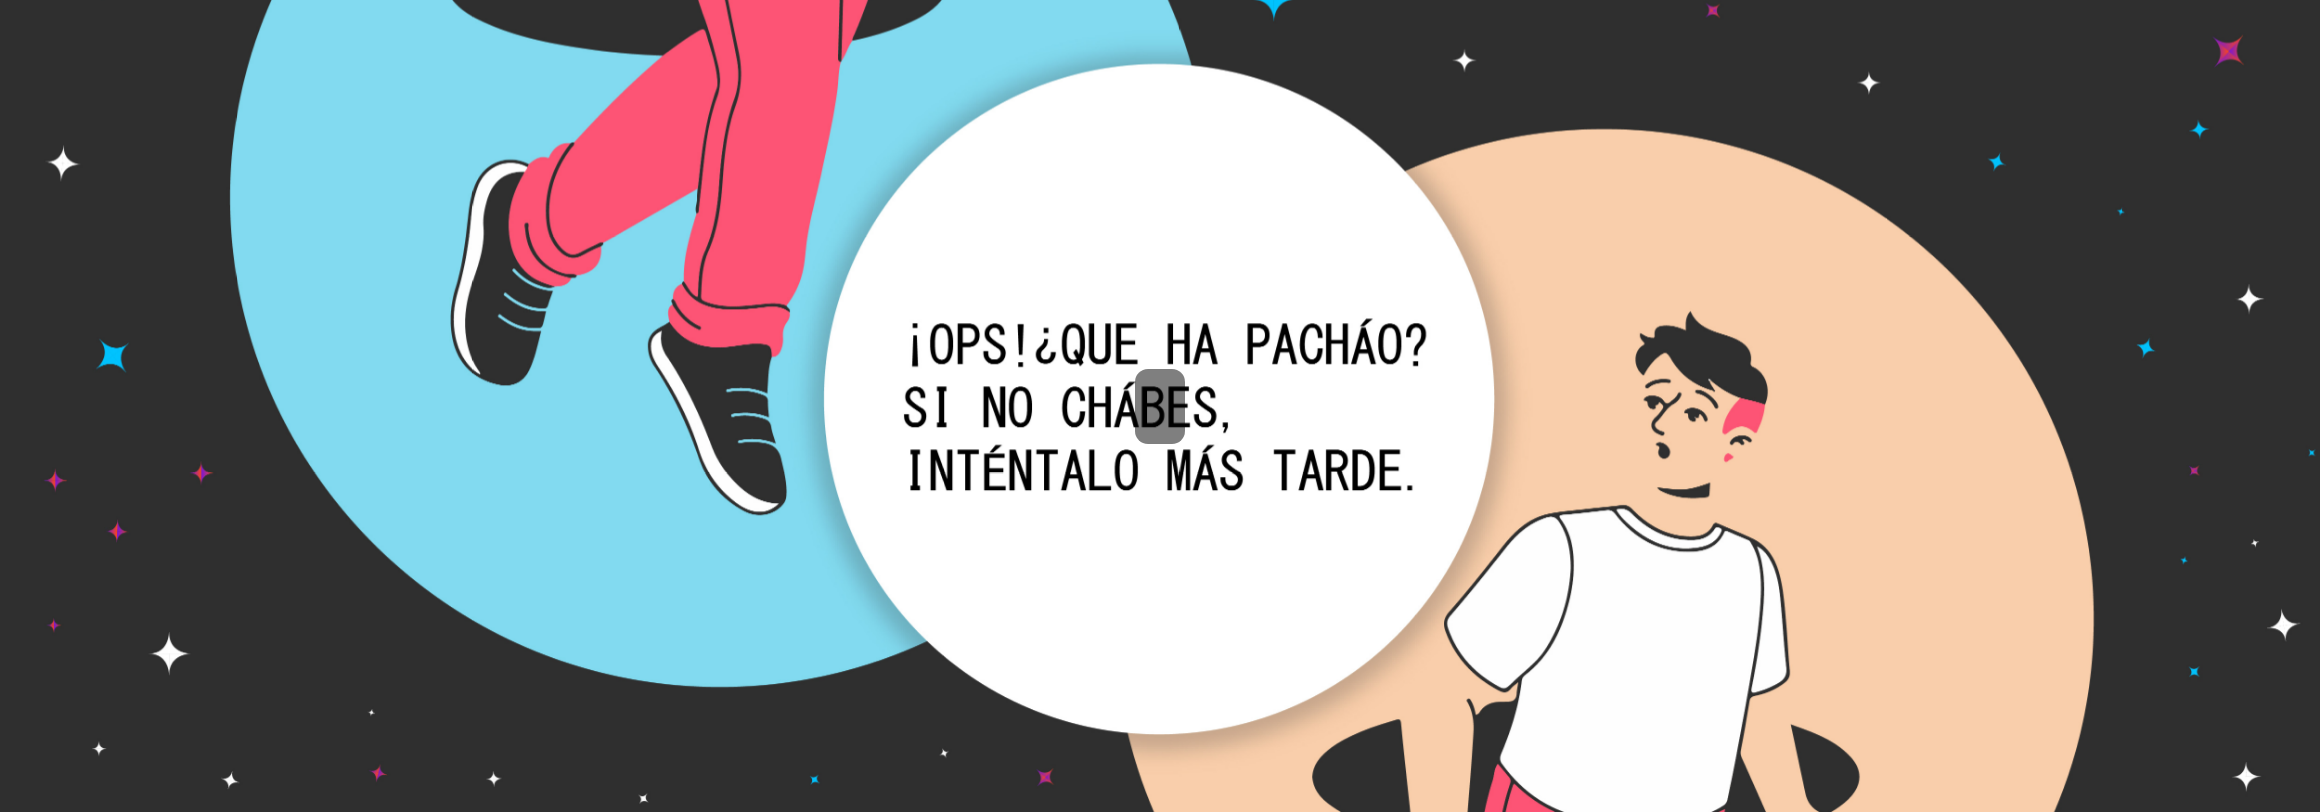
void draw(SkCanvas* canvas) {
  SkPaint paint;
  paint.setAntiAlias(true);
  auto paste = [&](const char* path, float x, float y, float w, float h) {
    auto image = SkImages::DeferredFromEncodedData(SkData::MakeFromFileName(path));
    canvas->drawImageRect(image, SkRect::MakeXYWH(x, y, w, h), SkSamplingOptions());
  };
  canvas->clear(0xffffffff);
  paste("img/1.png", 0, 0, 2320, 812);
  paint.setColor(0x80000000);
  canvas->drawRoundRect(SkRect::MakeXYWH(1135, 369, 50, 75), 13, 13, paint);
}
